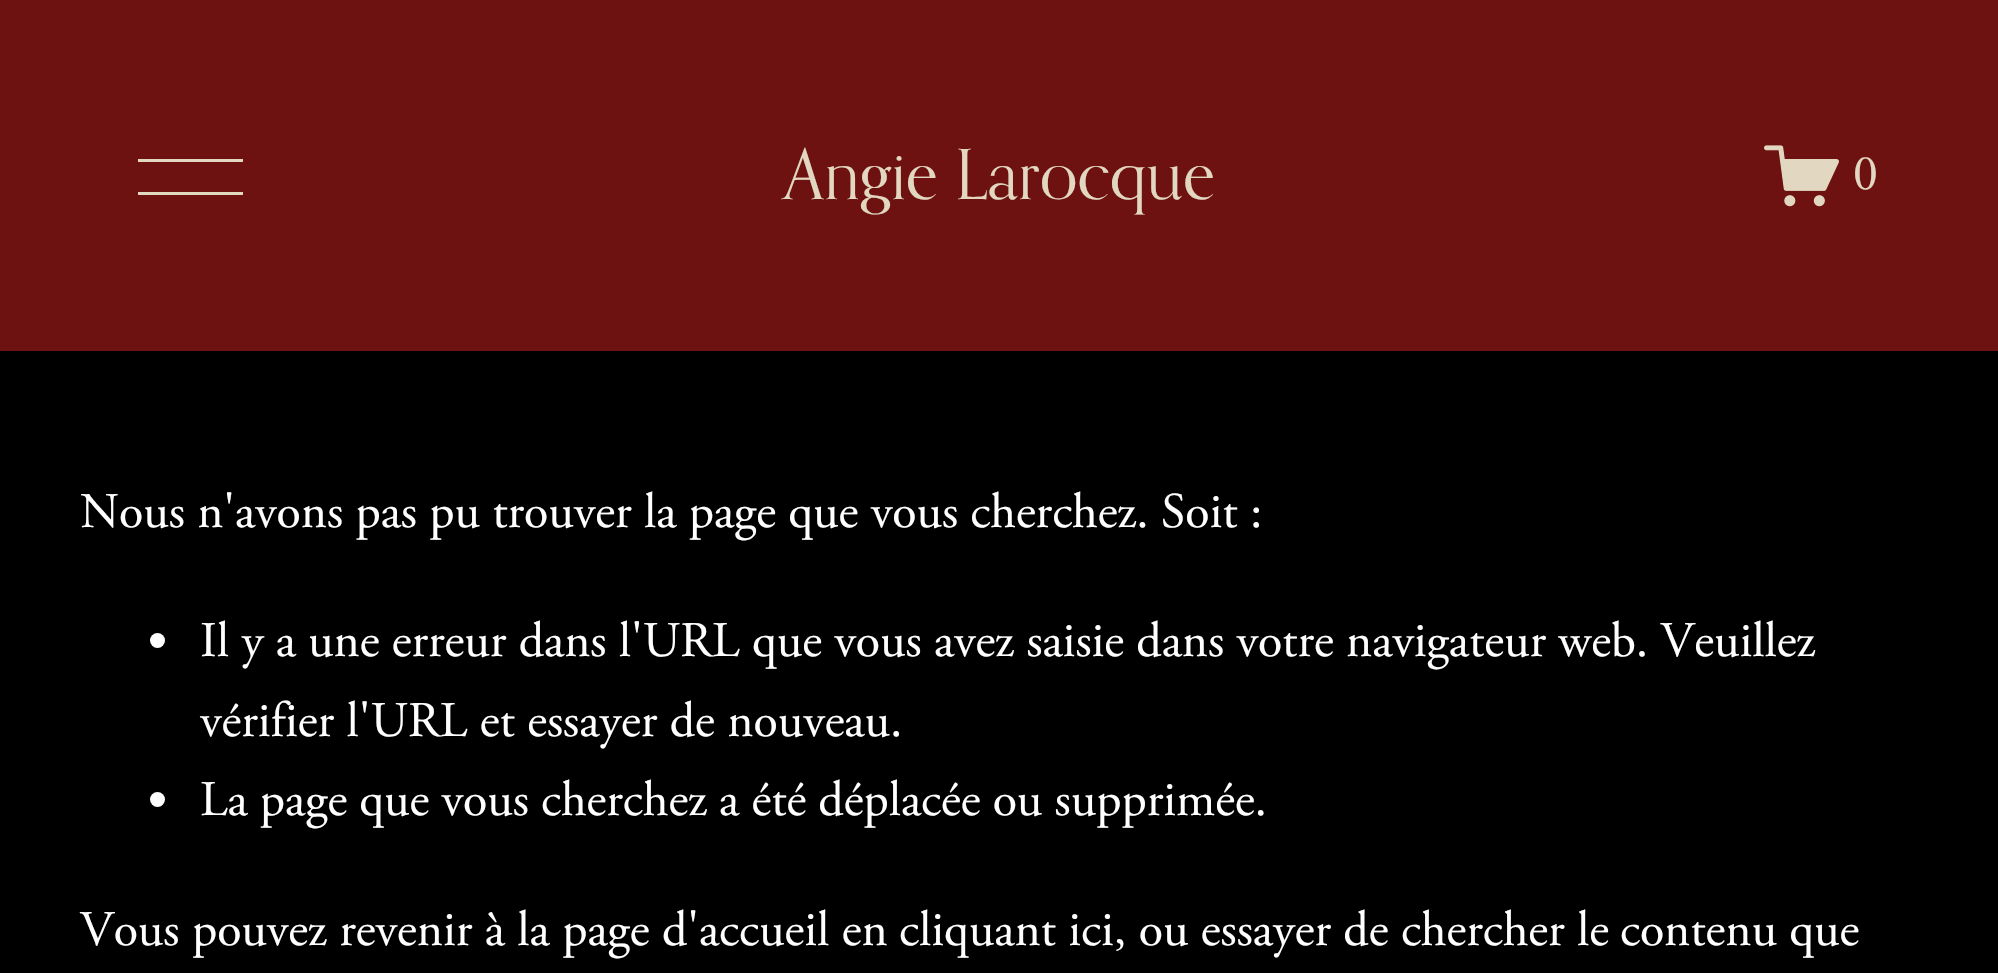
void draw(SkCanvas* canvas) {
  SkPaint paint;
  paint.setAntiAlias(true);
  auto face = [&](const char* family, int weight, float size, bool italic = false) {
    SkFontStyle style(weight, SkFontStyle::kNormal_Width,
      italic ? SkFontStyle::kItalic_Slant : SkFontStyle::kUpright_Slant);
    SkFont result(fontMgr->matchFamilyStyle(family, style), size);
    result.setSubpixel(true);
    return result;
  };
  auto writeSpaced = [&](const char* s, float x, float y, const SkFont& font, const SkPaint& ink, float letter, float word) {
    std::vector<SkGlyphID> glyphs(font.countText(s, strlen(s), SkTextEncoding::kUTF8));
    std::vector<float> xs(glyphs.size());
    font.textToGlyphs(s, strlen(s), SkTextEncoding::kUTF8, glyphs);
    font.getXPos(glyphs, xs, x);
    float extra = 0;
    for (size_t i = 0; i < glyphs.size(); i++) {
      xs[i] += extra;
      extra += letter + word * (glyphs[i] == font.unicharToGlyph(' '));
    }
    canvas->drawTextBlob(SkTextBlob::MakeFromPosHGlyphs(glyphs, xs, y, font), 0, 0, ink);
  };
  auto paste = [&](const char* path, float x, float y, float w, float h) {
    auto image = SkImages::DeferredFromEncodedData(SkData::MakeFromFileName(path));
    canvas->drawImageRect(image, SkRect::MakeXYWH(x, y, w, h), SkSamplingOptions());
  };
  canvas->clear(0xff000000);
  {
    const struct { float x, y, w, h; SkColor color; } items[] = {
      {0, 0, 1998, 351, 0xff6e1111},
      {138, 159, 105, 3, 0xffe2d7c1},
      {138, 192, 105, 3, 0xffe2d7c1},
    };
    for (auto [x, y, w, h, color] : items) {
      paint.setColor(color);
      canvas->drawRect(SkRect::MakeXYWH(x, y, w, h), paint);
    }
  }
  paste("img/1.png", 1764, 145, 75, 62);
  paint.setColor(0xffffffff);
  canvas->drawCircle(157.5f, 640.5f, 7.5f, paint);
  canvas->drawCircle(157.5f, 799.5f, 7.5f, paint);
  auto f0 = face("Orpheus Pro", 400, 69);
  paint.setColor(0xffe2d7c1);
  canvas->drawString("Angie Larocque", 784, 199, f0, paint);
  auto f1 = face("Adobe Garamond", 400, 49.8f);
  canvas->drawString("0", 1853, 189, f1, paint);
  paint.setColor(0xffffffff);
  writeSpaced("Nous n'avons pas pu trouver la page que vous cherchez. Soit :", 80, 527, f1, paint, 0, -0.1f);
  writeSpaced("Il y a une erreur dans l'URL que vous avez saisie dans votre navigateur web. Veuillez", 200, 656, f1, paint, 0, -0.1f);
  canvas->drawString("vérifier l'URL et essayer de nouveau.", 200, 736, f1, paint);
  writeSpaced("La page que vous cherchez a été déplacée ou supprimée.", 200, 815, f1, paint, 0, -0.25f);
  {
    const struct { const char* s; float x, y; } items[] = {
      {"Vous pouvez revenir à la page d'accueil en", 80, 945},
      {"cliquant ici, ou essayer de chercher le", 899, 945},
      {"contenu que", 1620, 945},
    };
    for (auto [s, x, y] : items) {
      canvas->drawString(s, x, y, f1, paint);
    }
  }
}
